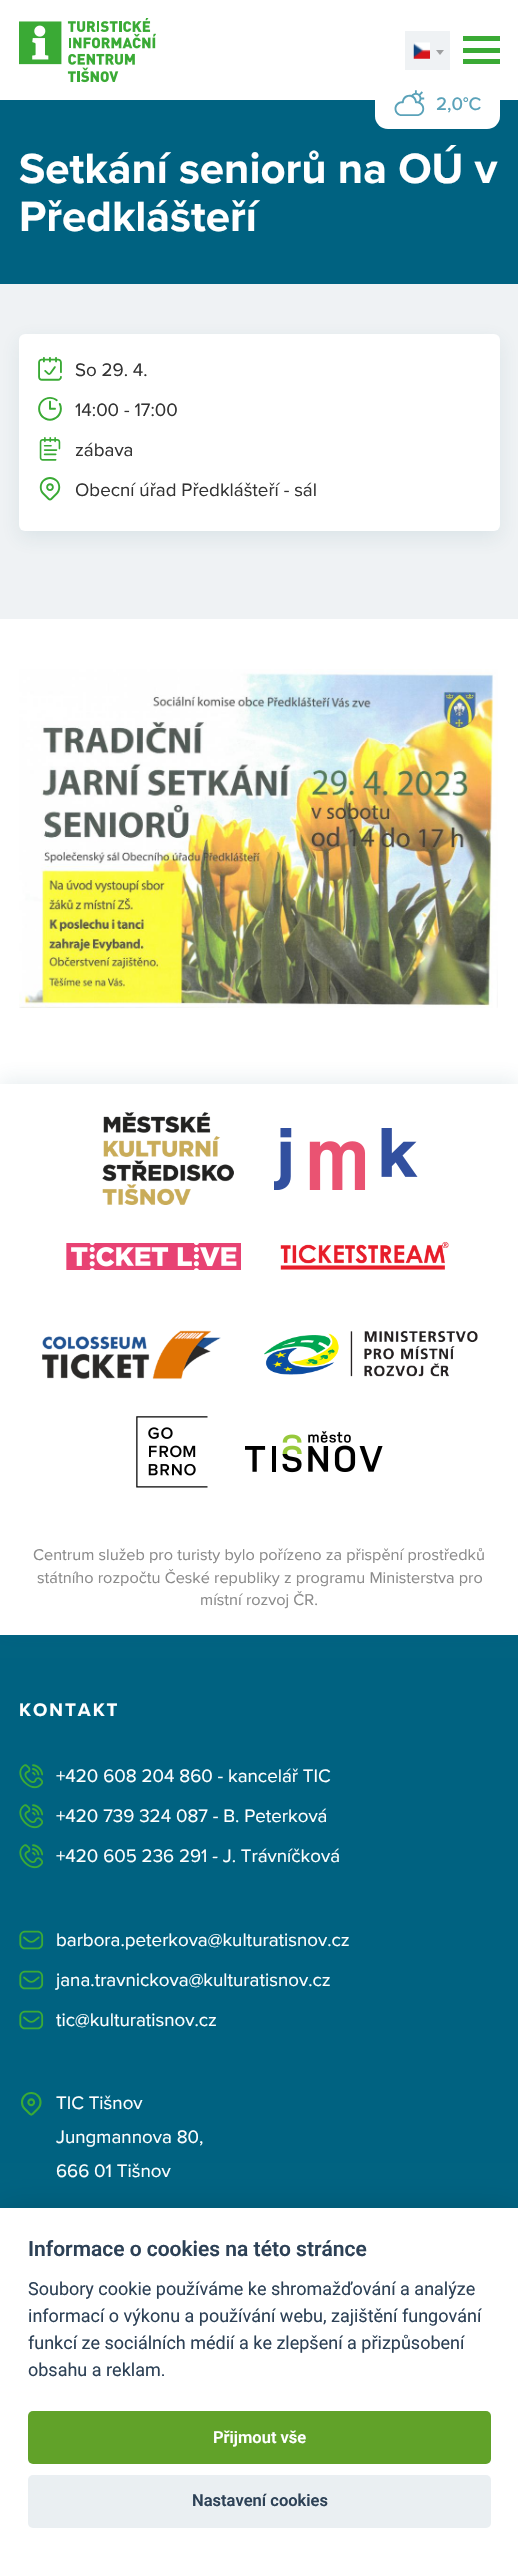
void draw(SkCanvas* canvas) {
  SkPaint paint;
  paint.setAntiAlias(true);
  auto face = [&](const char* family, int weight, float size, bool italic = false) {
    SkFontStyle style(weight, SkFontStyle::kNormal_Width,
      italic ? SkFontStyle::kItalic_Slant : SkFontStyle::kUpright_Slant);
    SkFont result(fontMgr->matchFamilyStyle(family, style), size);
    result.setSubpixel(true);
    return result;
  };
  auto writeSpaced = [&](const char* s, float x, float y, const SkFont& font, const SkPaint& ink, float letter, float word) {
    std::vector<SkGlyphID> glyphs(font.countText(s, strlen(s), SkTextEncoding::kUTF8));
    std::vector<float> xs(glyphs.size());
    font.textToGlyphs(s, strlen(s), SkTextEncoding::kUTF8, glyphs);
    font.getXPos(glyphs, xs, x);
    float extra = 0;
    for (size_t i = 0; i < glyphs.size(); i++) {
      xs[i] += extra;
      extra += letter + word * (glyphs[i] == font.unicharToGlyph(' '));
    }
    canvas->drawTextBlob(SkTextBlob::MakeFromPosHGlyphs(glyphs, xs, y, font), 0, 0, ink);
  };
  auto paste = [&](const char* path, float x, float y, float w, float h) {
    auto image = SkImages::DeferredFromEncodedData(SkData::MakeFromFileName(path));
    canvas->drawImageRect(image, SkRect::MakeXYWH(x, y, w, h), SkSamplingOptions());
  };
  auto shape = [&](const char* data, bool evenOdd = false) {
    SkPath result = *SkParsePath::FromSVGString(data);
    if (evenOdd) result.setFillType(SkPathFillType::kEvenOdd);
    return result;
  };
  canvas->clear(0xffffffff);
  paste("img/1.png", 19, 18, 137, 65);
  paint.setColor(0xffeff2f4);
  canvas->drawRect(SkRect::MakeXYWH(405, 31, 45, 39), paint);
  paste("img/2.png", 413, 42, 17, 17);
  paint.setColor(0xff9d9fa0);
  canvas->drawPath(shape("M436 50H444L440 55Z"), paint);
  {
    const struct { float x, y, w, h; SkColor color; } items[] = {
      {463, 36, 37, 5, 0xff3aaa35},
      {463, 48, 37, 5, 0xff3aaa35},
      {463, 59, 37, 5, 0xff3aaa35},
      {0, 100, 518, 184, 0xff006281},
    };
    for (auto [x, y, w, h, color] : items) {
      paint.setColor(color);
      canvas->drawRect(SkRect::MakeXYWH(x, y, w, h), paint);
    }
  }
  paint.setColor(0xffffffff);
  canvas->drawRoundRect(SkRect::MakeXYWH(375, 79, 125, 50), 13, 13, paint);
  paste("img/3.png", 394, 90, 31, 26);
  paint.setColor(0xffeff2f4);
  canvas->drawRect(SkRect::MakeXYWH(0, 284, 518, 335), paint);
  paint.setColor(0x1a236276);
  paint.setMaskFilter(SkMaskFilter::MakeBlur(kNormal_SkBlurStyle, 9.5f));
  canvas->drawRoundRect(SkRect::MakeXYWH(19, 340, 481, 198), 6, 6, paint);
  paint.setMaskFilter(nullptr);
  paint.setColor(0xffffffff);
  canvas->drawRoundRect(SkRect::MakeXYWH(19, 334, 481, 197), 6, 6, paint);
  paste("img/4.png", 38, 357, 24, 24);
  paste("img/5.png", 38, 397, 24, 24);
  paste("img/6.png", 39, 437, 22, 24);
  paste("img/7.png", 39, 477, 22, 24);
  paste("img/8.png", 19, 669, 479, 339);
  paint.setColor(0xff006281);
  canvas->drawRect(SkRect::MakeXYWH(0, 1635, 518, 573), paint);
  canvas->save();
  canvas->clipPath(shape("M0 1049H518V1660H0ZM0 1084H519V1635H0Z", true), true);
  paint.setColor(0x1a236276);
  paint.setMaskFilter(SkMaskFilter::MakeBlur(kNormal_SkBlurStyle, 9.5f));
  canvas->drawRect(SkRect::MakeXYWH(0, 1079, 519, 551), paint);
  paint.setMaskFilter(nullptr);
  canvas->restore();
  paste("img/9.png", 102, 1112, 132, 93);
  paste("img/10.png", 274, 1128, 144, 62);
  paste("img/11.png", 66, 1243, 175, 27);
  paste("img/12.png", 280, 1241, 169, 29);
  paste("img/13.png", 42, 1330, 179, 50);
  paste("img/14.png", 264, 1331, 214, 46);
  paste("img/15.png", 136, 1416, 72, 72);
  paste("img/16.png", 245, 1431, 138, 42);
  paste("img/17.png", 19, 1764, 24, 25);
  paste("img/18.png", 19, 1804, 24, 25);
  paste("img/18.png", 19, 1844, 24, 25);
  paste("img/19.png", 19, 1930, 25, 20);
  paste("img/19.png", 19, 1970, 25, 20);
  paste("img/19.png", 19, 2010, 25, 20);
  paste("img/20.png", 20, 2092, 22, 24);
  paint.setColor(0x47020203);
  paint.setMaskFilter(SkMaskFilter::MakeBlur(kNormal_SkBlurStyle, 19));
  canvas->drawRect(SkRect::MakeXYWH(0, 2220, 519, 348), paint);
  paint.setMaskFilter(nullptr);
  paint.setColor(0xffffffff);
  canvas->drawRect(SkRect::MakeXYWH(0, 2208, 518, 346), paint);
  paint.setColor(0xff61a229);
  canvas->drawRoundRect(SkRect::MakeXYWH(28, 2411, 463, 53), 5, 5, paint);
  paint.setColor(0xffeaeff2);
  canvas->drawRoundRect(SkRect::MakeXYWH(28, 2475, 463, 53), 5, 5, paint);
  auto f0 = face("Proxima Nova", 500, 18.75f);
  paint.setColor(0xff5aa2b9);
  canvas->drawString("2,0°C", 436, 110, f0, paint);
  auto f1 = face("Proxima Nova", 700, 43.75f);
  paint.setColor(0xffffffff);
  canvas->drawString("Setkání seniorů na OÚ v", 19, 183, f1, paint);
  canvas->drawString("Předklášteří", 19, 231, f1, paint);
  auto f2 = face("Proxima Nova", 400, 18.75f);
  paint.setColor(0xff333333);
  {
    const struct { const char* s; float x, y; } items[] = {
      {"So 29. 4.", 75, 376},
      {"14:00 - 17:00", 75, 416},
      {"zábava", 75, 456},
      {"Obecní úřad Předklášteří - sál", 75, 496},
    };
    for (auto [s, x, y] : items) {
      canvas->drawString(s, x, y, f2, paint);
    }
  }
  auto f3 = face("Proxima Nova", 400, 16.25f);
  paint.setColor(0xff8b8b8b);
  {
    const struct { const char* s; float x, y; } items[] = {
      {"Centrum služeb pro turisty bylo pořízeno za přispění prostředků", 33, 1560},
      {"státního rozpočtu České republiky z programu Ministerstva pro", 37, 1583},
      {"místní rozvoj ČR.", 200, 1605},
    };
    for (auto [s, x, y] : items) {
      canvas->drawString(s, x, y, f3, paint);
    }
  }
  auto f4 = face("Proxima Nova", 700, 18.75f);
  paint.setColor(0xffffffff);
  writeSpaced("KONTAKT", 19, 1716, f4, paint, 2, 0);
  {
    const struct { const char* s; float x, y; } items[] = {
      {"+420 608 204 860 - kancelář TIC", 56, 1782},
      {"+420 739 324 087 - B. Peterková", 56, 1822},
      {"+420 605 236 291 - J. Trávníčková", 56, 1862},
      {"barbora.peterkova@kulturatisnov.cz", 56, 1946},
      {"jana.travnickova@kulturatisnov.cz", 56, 1986},
      {"tic@kulturatisnov.cz", 56, 2026},
      {"TIC Tišnov", 56, 2109},
      {"Jungmannova 80,", 56, 2143},
      {"666 01 Tišnov", 56, 2177},
    };
    for (auto [s, x, y] : items) {
      canvas->drawString(s, x, y, f2, paint);
    }
  }
  auto f5 = face("Roboto", 600, 21);
  paint.setColor(0xff2d4156);
  canvas->drawString("Informace o cookies na této stránce", 28, 2256, f5, paint);
  auto f6 = face("Roboto", 400, 18);
  {
    const struct { const char* s; float x, y; } items[] = {
      {"Soubory cookie používáme ke shromažďování a analýze", 28, 2295},
      {"informací o výkonu a používání webu, zajištění fungování", 28, 2322},
      {"funkcí ze sociálních médií a ke zlepšení a přizpůsobení", 28, 2349},
      {"obsahu a reklam.", 28, 2376},
    };
    for (auto [s, x, y] : items) {
      canvas->drawString(s, x, y, f6, paint);
    }
  }
  auto f7 = face("Roboto", 600, 16.5f);
  paint.setColor(0xffffffff);
  canvas->drawString("Přijmout vše", 213, 2443, f7, paint);
  paint.setColor(0xff2d4156);
  canvas->drawString("Nastavení cookies", 192, 2506, f7, paint);
}
